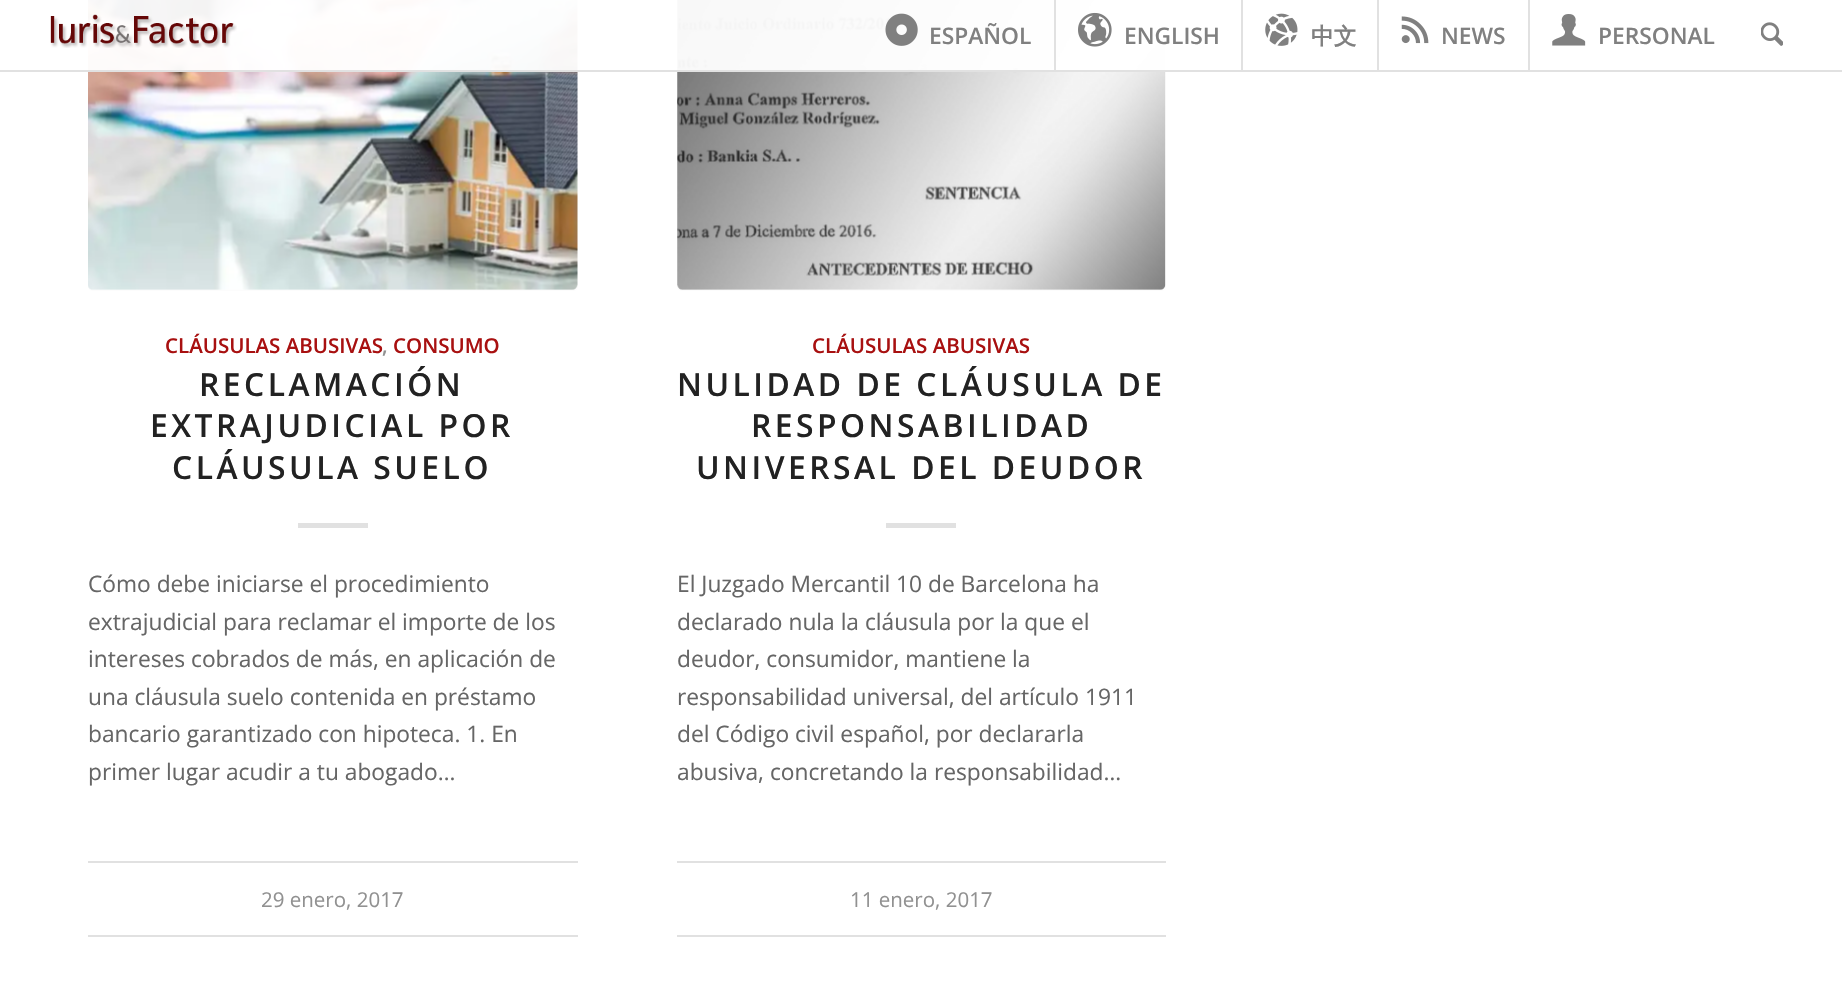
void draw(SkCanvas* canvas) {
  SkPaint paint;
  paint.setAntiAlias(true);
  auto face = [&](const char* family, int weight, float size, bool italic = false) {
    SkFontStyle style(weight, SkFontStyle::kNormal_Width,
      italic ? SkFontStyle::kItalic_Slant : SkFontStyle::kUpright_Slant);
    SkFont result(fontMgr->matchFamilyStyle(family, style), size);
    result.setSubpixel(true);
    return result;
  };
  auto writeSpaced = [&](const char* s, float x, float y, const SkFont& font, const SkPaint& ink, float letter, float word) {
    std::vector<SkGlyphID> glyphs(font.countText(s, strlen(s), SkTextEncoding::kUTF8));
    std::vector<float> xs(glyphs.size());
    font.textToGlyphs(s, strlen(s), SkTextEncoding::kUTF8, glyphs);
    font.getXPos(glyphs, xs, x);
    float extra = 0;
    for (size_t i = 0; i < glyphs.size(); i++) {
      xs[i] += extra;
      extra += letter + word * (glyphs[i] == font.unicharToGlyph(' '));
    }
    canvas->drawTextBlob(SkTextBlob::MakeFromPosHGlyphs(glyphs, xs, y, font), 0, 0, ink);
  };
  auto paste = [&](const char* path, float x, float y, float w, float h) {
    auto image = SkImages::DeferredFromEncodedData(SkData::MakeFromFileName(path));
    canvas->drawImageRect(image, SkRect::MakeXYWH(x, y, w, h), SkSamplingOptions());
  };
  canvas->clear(0xffffffff);
  paint.setColor(0xfffcfcfc);
  canvas->drawRoundRect(SkRect::MakeXYWH(88, -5, 490, 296), 5, 5, paint);
  paste("img/8.png", 88, 0, 490, 290);
  canvas->drawRoundRect(SkRect::MakeXYWH(677, -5, 489, 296), 5, 5, paint);
  paste("img/9.png", 677, 0, 489, 290);
  paint.setColor(0xf2ffffff);
  canvas->drawRect(SkRect::MakeXYWH(88, 0, 1078, 70), paint);
  paint.setColor(0xffe1e1e1);
  canvas->drawRect(SkRect::MakeXYWH(0, 70, 1842, 2), paint);
  paste("img/1.png", 50, 14, 187, 34);
  paste("img/2.png", 885, 13, 33, 33);
  canvas->drawRect(SkRect::MakeXYWH(1054, 0, 2, 70), paint);
  paste("img/3.png", 1078, 12, 34, 35);
  canvas->drawRect(SkRect::MakeXYWH(1241, 0, 2, 70), paint);
  paste("img/4.png", 1265, 13, 33, 33);
  canvas->drawRect(SkRect::MakeXYWH(1377, 0, 2, 70), paint);
  paste("img/5.png", 1401, 16, 28, 28);
  canvas->drawRect(SkRect::MakeXYWH(1528, 0, 2, 70), paint);
  paste("img/6.png", 1552, 14, 34, 32);
  paste("img/7.png", 1761, 22, 22, 24);
  {
    const struct { float x, y, w, h; SkColor color; } items[] = {
      {298, 523, 70, 5, 0xffe1e1e1},
      {88, 861, 490, 2, 0xffe1e1e1},
      {88, 935, 490, 2, 0xffe1e1e1},
      {886, 523, 70, 5, 0xffe1e1e1},
      {677, 861, 489, 2, 0xffe1e1e1},
      {677, 935, 489, 2, 0xffe1e1e1},
    };
    for (auto [x, y, w, h, color] : items) {
      paint.setColor(color);
      canvas->drawRect(SkRect::MakeXYWH(x, y, w, h), paint);
    }
  }
  auto f0 = face("Open Sans", 600, 22.75f);
  paint.setColor(0xff808080);
  canvas->drawString("ESPAÑOL", 929, 44, f0, paint);
  canvas->drawString("ENGLISH", 1124, 44, f0, paint);
  auto f1 = face("WenQuanYi Zen Hei", 700, 22.75f);
  canvas->drawString("中文", 1311, 44, f1, paint);
  canvas->drawString("NEWS", 1441, 44, f0, paint);
  canvas->drawString("PERSONAL", 1598, 44, f0, paint);
  auto f2 = face("Open Sans", 600, 20.5f);
  paint.setColor(0xffa81010);
  canvas->drawString("CLÁUSULAS ABUSIVAS", 165, 353, f2, paint);
  paint.setColor(0xff919191);
  canvas->drawString(",", 382, 353, f2, paint);
  paint.setColor(0xffa81010);
  canvas->drawString("CONSUMO", 393, 353, f2, paint);
  auto f3 = face("Open Sans", 600, 31.8f);
  paint.setColor(0xff222222);
  {
    const struct { const char* s; float x, y; } items[] = {
      {"RECLAMACIÓN", 199, 396},
      {"EXTRAJUDICIAL POR", 150, 437},
      {"CLÁUSULA SUELO", 172, 479},
    };
    for (auto [s, x, y] : items) {
      writeSpaced(s, x, y, f3, paint, 3.5f, 0);
    }
  }
  auto f4 = face("Open Sans", 400, 22.75f);
  paint.setColor(0xff666666);
  {
    const struct { const char* s; float x, y; } items[] = {
      {"Cómo debe iniciarse el procedimiento", 88, 592},
      {"extrajudicial para reclamar el importe de los", 88, 630},
      {"intereses cobrados de más, en aplicación de", 88, 667},
      {"una cláusula suelo contenida en préstamo", 88, 705},
      {"bancario garantizado con hipoteca. 1. En", 88, 742},
      {"primer lugar acudir a tu abogado…", 88, 780},
    };
    for (auto [s, x, y] : items) {
      canvas->drawString(s, x, y, f4, paint);
    }
  }
  auto f5 = face("Open Sans", 400, 20.5f);
  paint.setColor(0xff919191);
  canvas->drawString("29 enero, 2017", 261, 907, f5, paint);
  paint.setColor(0xffa81010);
  canvas->drawString("CLÁUSULAS ABUSIVAS", 812, 353, f2, paint);
  paint.setColor(0xff222222);
  {
    const struct { const char* s; float x, y; } items[] = {
      {"NULIDAD DE CLÁUSULA DE", 677, 396},
      {"RESPONSABILIDAD", 751, 437},
      {"UNIVERSAL DEL DEUDOR", 696, 479},
    };
    for (auto [s, x, y] : items) {
      writeSpaced(s, x, y, f3, paint, 3.5f, 0);
    }
  }
  paint.setColor(0xff666666);
  {
    const struct { const char* s; float x, y; } items[] = {
      {"El Juzgado Mercantil 10 de Barcelona ha", 677, 592},
      {"declarado nula la cláusula por la que el", 677, 630},
      {"deudor, consumidor, mantiene la", 677, 667},
      {"responsabilidad universal, del artículo 1911", 677, 705},
      {"del Código civil español, por declararla", 677, 742},
      {"abusiva, concretando la responsabilidad…", 677, 780},
    };
    for (auto [s, x, y] : items) {
      canvas->drawString(s, x, y, f4, paint);
    }
  }
  paint.setColor(0xff919191);
  canvas->drawString("11 enero, 2017", 850, 907, f5, paint);
}
